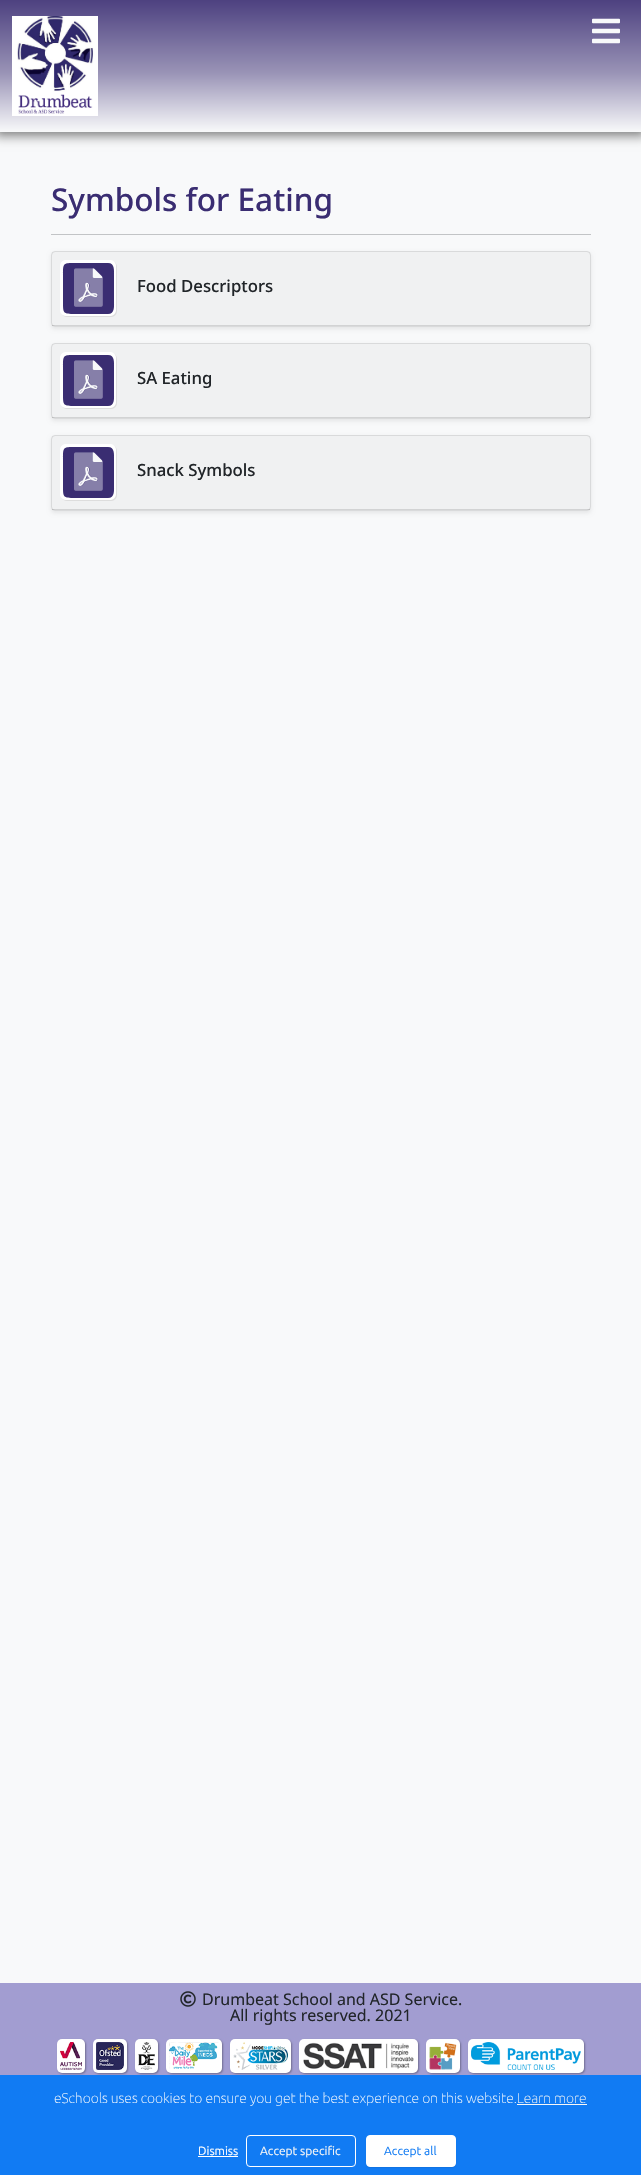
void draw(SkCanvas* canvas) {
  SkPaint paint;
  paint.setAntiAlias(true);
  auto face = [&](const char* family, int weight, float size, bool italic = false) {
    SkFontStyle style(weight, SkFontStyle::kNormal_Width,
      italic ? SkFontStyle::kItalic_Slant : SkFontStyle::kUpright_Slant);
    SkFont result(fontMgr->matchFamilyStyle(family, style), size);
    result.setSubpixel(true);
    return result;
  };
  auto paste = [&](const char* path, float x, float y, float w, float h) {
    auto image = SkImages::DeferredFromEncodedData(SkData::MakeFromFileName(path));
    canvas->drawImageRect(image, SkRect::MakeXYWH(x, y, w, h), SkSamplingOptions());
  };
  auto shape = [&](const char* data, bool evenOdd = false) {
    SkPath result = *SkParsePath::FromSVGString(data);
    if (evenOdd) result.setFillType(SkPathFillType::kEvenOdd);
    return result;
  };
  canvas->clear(0xfff8f9fa);
  paint.setColor(0x66000000);
  paint.setMaskFilter(SkMaskFilter::MakeBlur(kNormal_SkBlurStyle, 5));
  canvas->drawRect(SkRect::MakeXYWH(-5, -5, 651, 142), paint);
  paint.setMaskFilter(nullptr);
  paint.setColor(0x12000000);
  paint.setMaskFilter(SkMaskFilter::MakeBlur(kNormal_SkBlurStyle, 2));
  canvas->drawRect(SkRect::MakeXYWH(0, 2, 641, 132), paint);
  paint.setMaskFilter(nullptr);
  {
    const SkColor colors[] = {0xff4d4180, 0xff9993b6, 0xfff8f9fa};
    const float stops[] = {0, 0.55f, 1};
    const SkPoint ends[] = {{321, 0}, {321, 132}};
    paint.setShader(SkGradientShader::MakeLinear(ends, colors, stops, 3, SkTileMode::kClamp));
    paint.setAlpha(255);
  }
  canvas->drawRect(SkRect::MakeXYWH(0, 0, 641, 132), paint);
  paste("img/1.png", 12, 16, 86, 100);
  paste("img/2.png", 592, 18, 28, 26);
  paint.setShader(nullptr);
  paint.setColor(0xffc2c4c6);
  canvas->drawRect(SkRect::MakeXYWH(51, 234, 540, 1), paint);
  paint.setColor(0x14000000);
  paint.setMaskFilter(SkMaskFilter::MakeBlur(kNormal_SkBlurStyle, 2));
  canvas->drawRoundRect(SkRect::MakeXYWH(51, 253, 540, 76), 4, 4, paint);
  paint.setMaskFilter(nullptr);
  paint.setColor(0xfff8f9fa);
  canvas->drawRoundRect(SkRect::MakeXYWH(51.5f, 251.5f, 539, 75), 3.5f, 3.5f, paint);
  paint.setStroke(true);
  paint.setStrokeWidth(1);
  paint.setColor(0xffd9dadb);
  canvas->drawRoundRect(SkRect::MakeXYWH(51.5f, 251.5f, 539, 75), 3.5f, 3.5f, paint);
  paint.setStroke(false);
  paint.setColor(0x08000000);
  canvas->drawRect(SkRect::MakeXYWH(52, 252, 538, 74), paint);
  paint.setColor(0x1f000000);
  canvas->drawRect(SkRect::MakeXYWH(52, 325, 538, 1), paint);
  paste("img/4.png", 61, 261, 56, 56);
  paste("img/3.png", 60, 260, 56, 56);
  paint.setColor(0xff3a2d72);
  canvas->drawPath(shape("M108 263C115 263 114 271 114 275V302C114 306 115 314 108 314H75C63 314 63 313 63 302V275C63 263 63 263 75 263Z"), paint);
  paste("img/6.png", 78, 268, 25, 34);
  paste("img/5.png", 74, 268, 29, 39);
  paint.setColor(0x14000000);
  paint.setMaskFilter(SkMaskFilter::MakeBlur(kNormal_SkBlurStyle, 2));
  canvas->drawRoundRect(SkRect::MakeXYWH(51, 345, 540, 76), 4, 4, paint);
  paint.setMaskFilter(nullptr);
  paint.setColor(0xfff8f9fa);
  canvas->drawRoundRect(SkRect::MakeXYWH(51.5f, 343.5f, 539, 75), 3.5f, 3.5f, paint);
  paint.setStroke(true);
  paint.setColor(0xffd9dadb);
  canvas->drawRoundRect(SkRect::MakeXYWH(51.5f, 343.5f, 539, 75), 3.5f, 3.5f, paint);
  paint.setStroke(false);
  paint.setColor(0x08000000);
  canvas->drawRect(SkRect::MakeXYWH(52, 344, 538, 74), paint);
  paint.setColor(0x1f000000);
  canvas->drawRect(SkRect::MakeXYWH(52, 417, 538, 1), paint);
  paste("img/4.png", 61, 353, 56, 56);
  paste("img/3.png", 60, 352, 56, 56);
  paint.setColor(0xff3a2d72);
  canvas->drawPath(shape("M108 355C115 355 114 363 114 367V394C114 398 115 406 108 406H75C63 406 63 405 63 394V367C63 355 63 355 75 355Z"), paint);
  paste("img/6.png", 78, 360, 25, 34);
  paste("img/5.png", 74, 360, 29, 39);
  paint.setColor(0x14000000);
  paint.setMaskFilter(SkMaskFilter::MakeBlur(kNormal_SkBlurStyle, 2));
  canvas->drawRoundRect(SkRect::MakeXYWH(51, 437, 540, 76), 4, 4, paint);
  paint.setMaskFilter(nullptr);
  paint.setColor(0xfff8f9fa);
  canvas->drawRoundRect(SkRect::MakeXYWH(51.5f, 435.5f, 539, 75), 3.5f, 3.5f, paint);
  paint.setStroke(true);
  paint.setColor(0xffd9dadb);
  canvas->drawRoundRect(SkRect::MakeXYWH(51.5f, 435.5f, 539, 75), 3.5f, 3.5f, paint);
  paint.setStroke(false);
  paint.setColor(0x08000000);
  canvas->drawRect(SkRect::MakeXYWH(52, 436, 538, 74), paint);
  paint.setColor(0x1f000000);
  canvas->drawRect(SkRect::MakeXYWH(52, 509, 538, 1), paint);
  paste("img/4.png", 61, 445, 56, 56);
  paste("img/3.png", 60, 444, 56, 56);
  paint.setColor(0xff3a2d72);
  canvas->drawPath(shape("M108 447C115 447 114 455 114 459V486C114 490 115 498 108 498H75C63 498 63 497 63 486V459C63 447 63 447 75 447Z"), paint);
  paste("img/6.png", 78, 452, 25, 34);
  paste("img/5.png", 74, 452, 29, 39);
  paint.setColor(0xffa29dd1);
  canvas->drawRect(SkRect::MakeXYWH(0, 1983, 641, 92), paint);
  paste("img/7.png", 180, 1991, 16, 16);
  paint.setColor(0x4d000000);
  paint.setMaskFilter(SkMaskFilter::MakeBlur(kNormal_SkBlurStyle, 1));
  canvas->drawRoundRect(SkRect::MakeXYWH(58, 2040, 28, 34), 5, 5, paint);
  paint.setMaskFilter(nullptr);
  paint.setColor(0xffffffff);
  canvas->drawRoundRect(SkRect::MakeXYWH(57, 2039, 28, 34), 5, 5, paint);
  paste("img/8.png", 60, 2042, 22, 28);
  paint.setColor(0x4d000000);
  paint.setMaskFilter(SkMaskFilter::MakeBlur(kNormal_SkBlurStyle, 1));
  canvas->drawRoundRect(SkRect::MakeXYWH(94, 2040, 34, 34), 5, 5, paint);
  paint.setMaskFilter(nullptr);
  paint.setColor(0xffffffff);
  canvas->drawRoundRect(SkRect::MakeXYWH(93, 2039, 34, 34), 5, 5, paint);
  paste("img/9.png", 96, 2042, 28, 28);
  paint.setColor(0x4d000000);
  paint.setMaskFilter(SkMaskFilter::MakeBlur(kNormal_SkBlurStyle, 1));
  canvas->drawRoundRect(SkRect::MakeXYWH(136, 2040, 23, 34), 5, 5, paint);
  paint.setMaskFilter(nullptr);
  paint.setColor(0xffffffff);
  canvas->drawRoundRect(SkRect::MakeXYWH(135, 2039, 23, 34), 5, 5, paint);
  paste("img/10.png", 138, 2042, 17, 28);
  paint.setColor(0x4d000000);
  paint.setMaskFilter(SkMaskFilter::MakeBlur(kNormal_SkBlurStyle, 1));
  canvas->drawRoundRect(SkRect::MakeXYWH(167, 2040, 56, 34), 5, 5, paint);
  paint.setMaskFilter(nullptr);
  paint.setColor(0xffffffff);
  canvas->drawRoundRect(SkRect::MakeXYWH(166, 2039, 56, 34), 5, 5, paint);
  paste("img/11.png", 169, 2042, 50, 27);
  paint.setColor(0x4d000000);
  paint.setMaskFilter(SkMaskFilter::MakeBlur(kNormal_SkBlurStyle, 1));
  canvas->drawRoundRect(SkRect::MakeXYWH(231, 2040, 61, 34), 5, 5, paint);
  paint.setMaskFilter(nullptr);
  paint.setColor(0xffffffff);
  canvas->drawRoundRect(SkRect::MakeXYWH(230, 2039, 61, 34), 5, 5, paint);
  paste("img/12.png", 233, 2042, 55, 28);
  paint.setColor(0x4d000000);
  paint.setMaskFilter(SkMaskFilter::MakeBlur(kNormal_SkBlurStyle, 1));
  canvas->drawRoundRect(SkRect::MakeXYWH(300, 2040, 119, 34), 5, 5, paint);
  paint.setMaskFilter(nullptr);
  paint.setColor(0xffffffff);
  canvas->drawRoundRect(SkRect::MakeXYWH(299, 2039, 119, 34), 5, 5, paint);
  paste("img/13.png", 303, 2042, 111, 27);
  paint.setColor(0x4d000000);
  paint.setMaskFilter(SkMaskFilter::MakeBlur(kNormal_SkBlurStyle, 1));
  canvas->drawRoundRect(SkRect::MakeXYWH(427, 2040, 34, 34), 5, 5, paint);
  paint.setMaskFilter(nullptr);
  paint.setColor(0xffffffff);
  canvas->drawRoundRect(SkRect::MakeXYWH(426, 2039, 34, 34), 5, 5, paint);
  paste("img/14.png", 429, 2042, 28, 28);
  paint.setColor(0x4d000000);
  paint.setMaskFilter(SkMaskFilter::MakeBlur(kNormal_SkBlurStyle, 1));
  canvas->drawRoundRect(SkRect::MakeXYWH(469, 2040, 116, 34), 5, 5, paint);
  paint.setMaskFilter(nullptr);
  paint.setColor(0xffffffff);
  canvas->drawRoundRect(SkRect::MakeXYWH(468, 2039, 116, 34), 5, 5, paint);
  paste("img/15.png", 471, 2042, 110, 28);
  {
    const struct { float x, y, w, h; SkColor color; } items[] = {
      {0, 2075, 641, 100, 0xff117bf3},
      {517, 2104, 70, 1, 0xfff7f7f7},
      {198, 2156, 40, 1, 0xffffffff},
    };
    for (auto [x, y, w, h, color] : items) {
      paint.setColor(color);
      canvas->drawRect(SkRect::MakeXYWH(x, y, w, h), paint);
    }
  }
  paint.setStroke(true);
  canvas->drawRoundRect(SkRect::MakeXYWH(246.5f, 2135.5f, 109, 31), 3.5f, 3.5f, paint);
  paint.setStroke(false);
  paint.setColor(0x12000000);
  paint.setMaskFilter(SkMaskFilter::MakeBlur(kNormal_SkBlurStyle, 0.5f));
  canvas->drawRoundRect(SkRect::MakeXYWH(366, 2136, 90, 32), 4, 4, paint);
  paint.setMaskFilter(nullptr);
  paint.setColor(0xffffffff);
  canvas->drawRoundRect(SkRect::MakeXYWH(366.5f, 2135.5f, 89, 31), 3.5f, 3.5f, paint);
  paint.setStroke(true);
  canvas->drawRoundRect(SkRect::MakeXYWH(366.5f, 2135.5f, 89, 31), 3.5f, 3.5f, paint);
  auto f0 = face("Noto Sans", 500, 31.5f);
  paint.setStroke(false);
  paint.setColor(0xff3a2d72);
  canvas->drawString("Symbols for Eating", 51, 211, f0, paint);
  auto f1 = face("Noto Sans", 500, 16.75f);
  paint.setColor(0xff212529);
  {
    const struct { const char* s; float x, y; } items[] = {
      {"Food Descriptors", 137, 292},
      {"SA Eating", 137, 384},
      {"Snack Symbols", 137, 476},
    };
    for (auto [s, x, y] : items) {
      canvas->drawString(s, x, y, f1, paint);
    }
  }
  auto f2 = face("Noto Sans", 400, 16);
  canvas->drawString("Drumbeat School and ASD Service.", 202, 2005, f2, paint);
  canvas->drawString("All rights reserved. 2021", 230, 2021, f2, paint);
  auto f3 = face("Ubuntu", 100, 14);
  paint.setColor(0xffffffff);
  canvas->drawString("eSchools uses cookies to ensure you get the best experience on this website.", 54, 2103, f3, paint);
  paint.setColor(0xfff7f7f7);
  canvas->drawString("Learn more", 517, 2103, f3, paint);
  auto f4 = face("Ubuntu", 400, 12);
  paint.setColor(0xffffffff);
  canvas->drawString("Dismiss", 198, 2155, f4, paint);
  paint.setColor(0xfff7f7f7);
  canvas->drawString("Accept specific", 260, 2155, f4, paint);
  paint.setColor(0xff117bf3);
  canvas->drawString("Accept all", 384, 2155, f4, paint);
}
